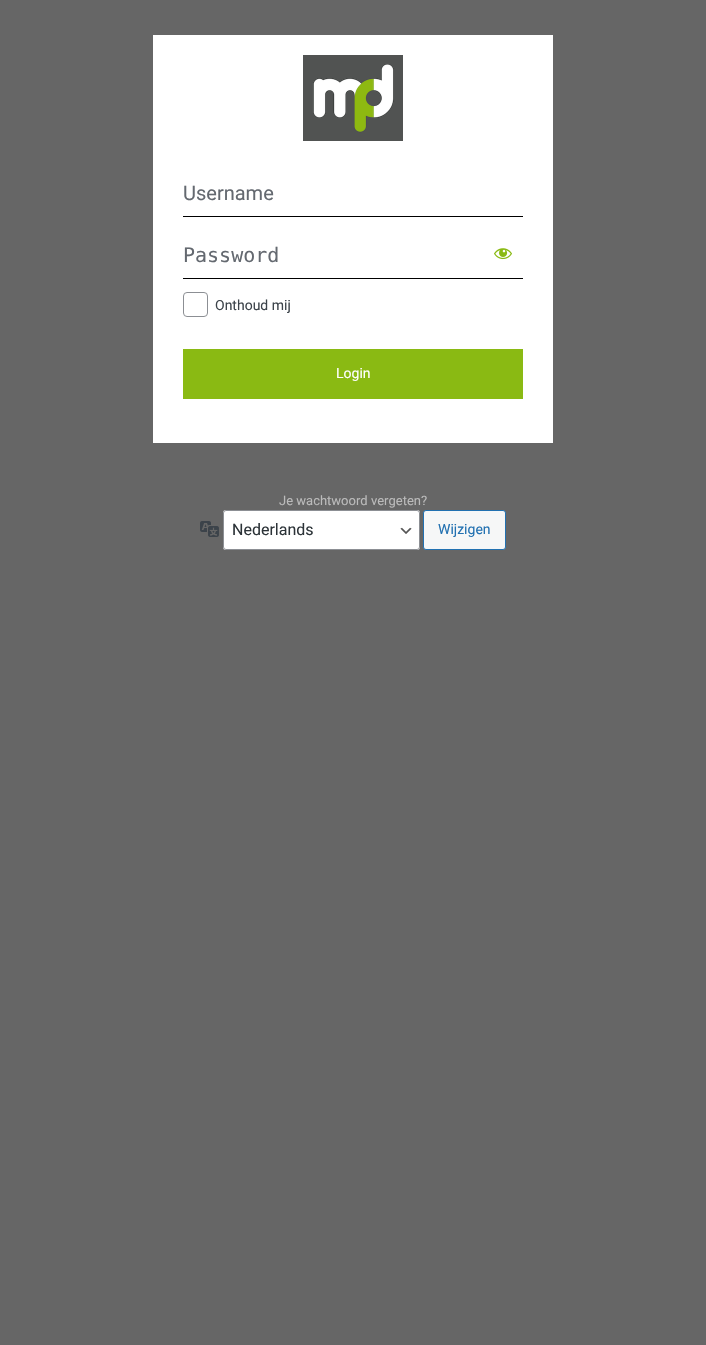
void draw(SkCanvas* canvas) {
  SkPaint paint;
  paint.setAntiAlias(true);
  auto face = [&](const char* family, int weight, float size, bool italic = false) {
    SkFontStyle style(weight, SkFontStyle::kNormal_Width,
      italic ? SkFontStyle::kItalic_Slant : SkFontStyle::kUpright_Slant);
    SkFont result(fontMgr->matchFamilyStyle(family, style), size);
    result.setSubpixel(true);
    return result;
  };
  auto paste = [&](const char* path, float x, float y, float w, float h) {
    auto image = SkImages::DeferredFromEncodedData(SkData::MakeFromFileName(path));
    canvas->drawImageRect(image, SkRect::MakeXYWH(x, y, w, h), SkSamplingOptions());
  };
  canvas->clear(0xff666666);
  paint.setColor(0xffffffff);
  canvas->drawRect(SkRect::MakeXYWH(153, 35, 400, 408), paint);
  paste("img/1.png", 303, 55, 100, 86);
  paint.setColor(0xff000000);
  canvas->drawRect(SkRect::MakeXYWH(183, 216, 340, 1), paint);
  canvas->drawRect(SkRect::MakeXYWH(183, 278, 340, 1), paint);
  paste("img/2.png", 494, 248, 18, 12);
  paint.setStroke(true);
  paint.setStrokeWidth(1);
  paint.setColor(0xff8c8f94);
  canvas->drawRoundRect(SkRect::MakeXYWH(183.5f, 292.5f, 24, 24), 3.5f, 3.5f, paint);
  paint.setStroke(false);
  paint.setColor(0xff8aba13);
  canvas->drawRect(SkRect::MakeXYWH(183, 349, 340, 50), paint);
  paste("img/3.png", 200, 521, 19, 16);
  paint.setColor(0xffffffff);
  canvas->drawRoundRect(SkRect::MakeXYWH(223, 510, 197, 40), 3, 3, paint);
  paste("img/4.png", 400, 527, 12, 7);
  paint.setStroke(true);
  paint.setColor(0xff8c8f94);
  canvas->drawRoundRect(SkRect::MakeXYWH(223.5f, 510.5f, 196, 39), 2.5f, 2.5f, paint);
  paint.setStroke(false);
  paint.setColor(0xfff6f7f7);
  canvas->drawRoundRect(SkRect::MakeXYWH(423.5f, 510.5f, 82, 39), 2.5f, 2.5f, paint);
  paint.setStroke(true);
  paint.setColor(0xff2271b1);
  canvas->drawRoundRect(SkRect::MakeXYWH(423.5f, 510.5f, 82, 39), 2.5f, 2.5f, paint);
  auto f0 = face("Roboto", 400, 20);
  paint.setStroke(false);
  paint.setColor(0xff646970);
  canvas->drawString("Username", 183, 200, f0, paint);
  auto f1 = face("DejaVu Sans Mono", 400, 20);
  canvas->drawString("Password", 183, 262, f1, paint);
  auto f2 = face("Roboto", 400, 14);
  paint.setColor(0xff3c434a);
  canvas->drawString("Onthoud mij", 215, 310, f2, paint);
  paint.setColor(0xffffffff);
  canvas->drawString("Login", 336, 378, f2, paint);
  auto f3 = face("Roboto", 400, 13);
  paint.setColor(0xffbbbbbb);
  canvas->drawString("Je wachtwoord vergeten?", 279, 505, f3, paint);
  auto f4 = face("Roboto", 400, 16);
  paint.setColor(0xff2c3338);
  canvas->drawString("Nederlands", 232, 535, f4, paint);
  paint.setColor(0xff2271b1);
  canvas->drawString("Wijzigen", 438, 534, f2, paint);
}
